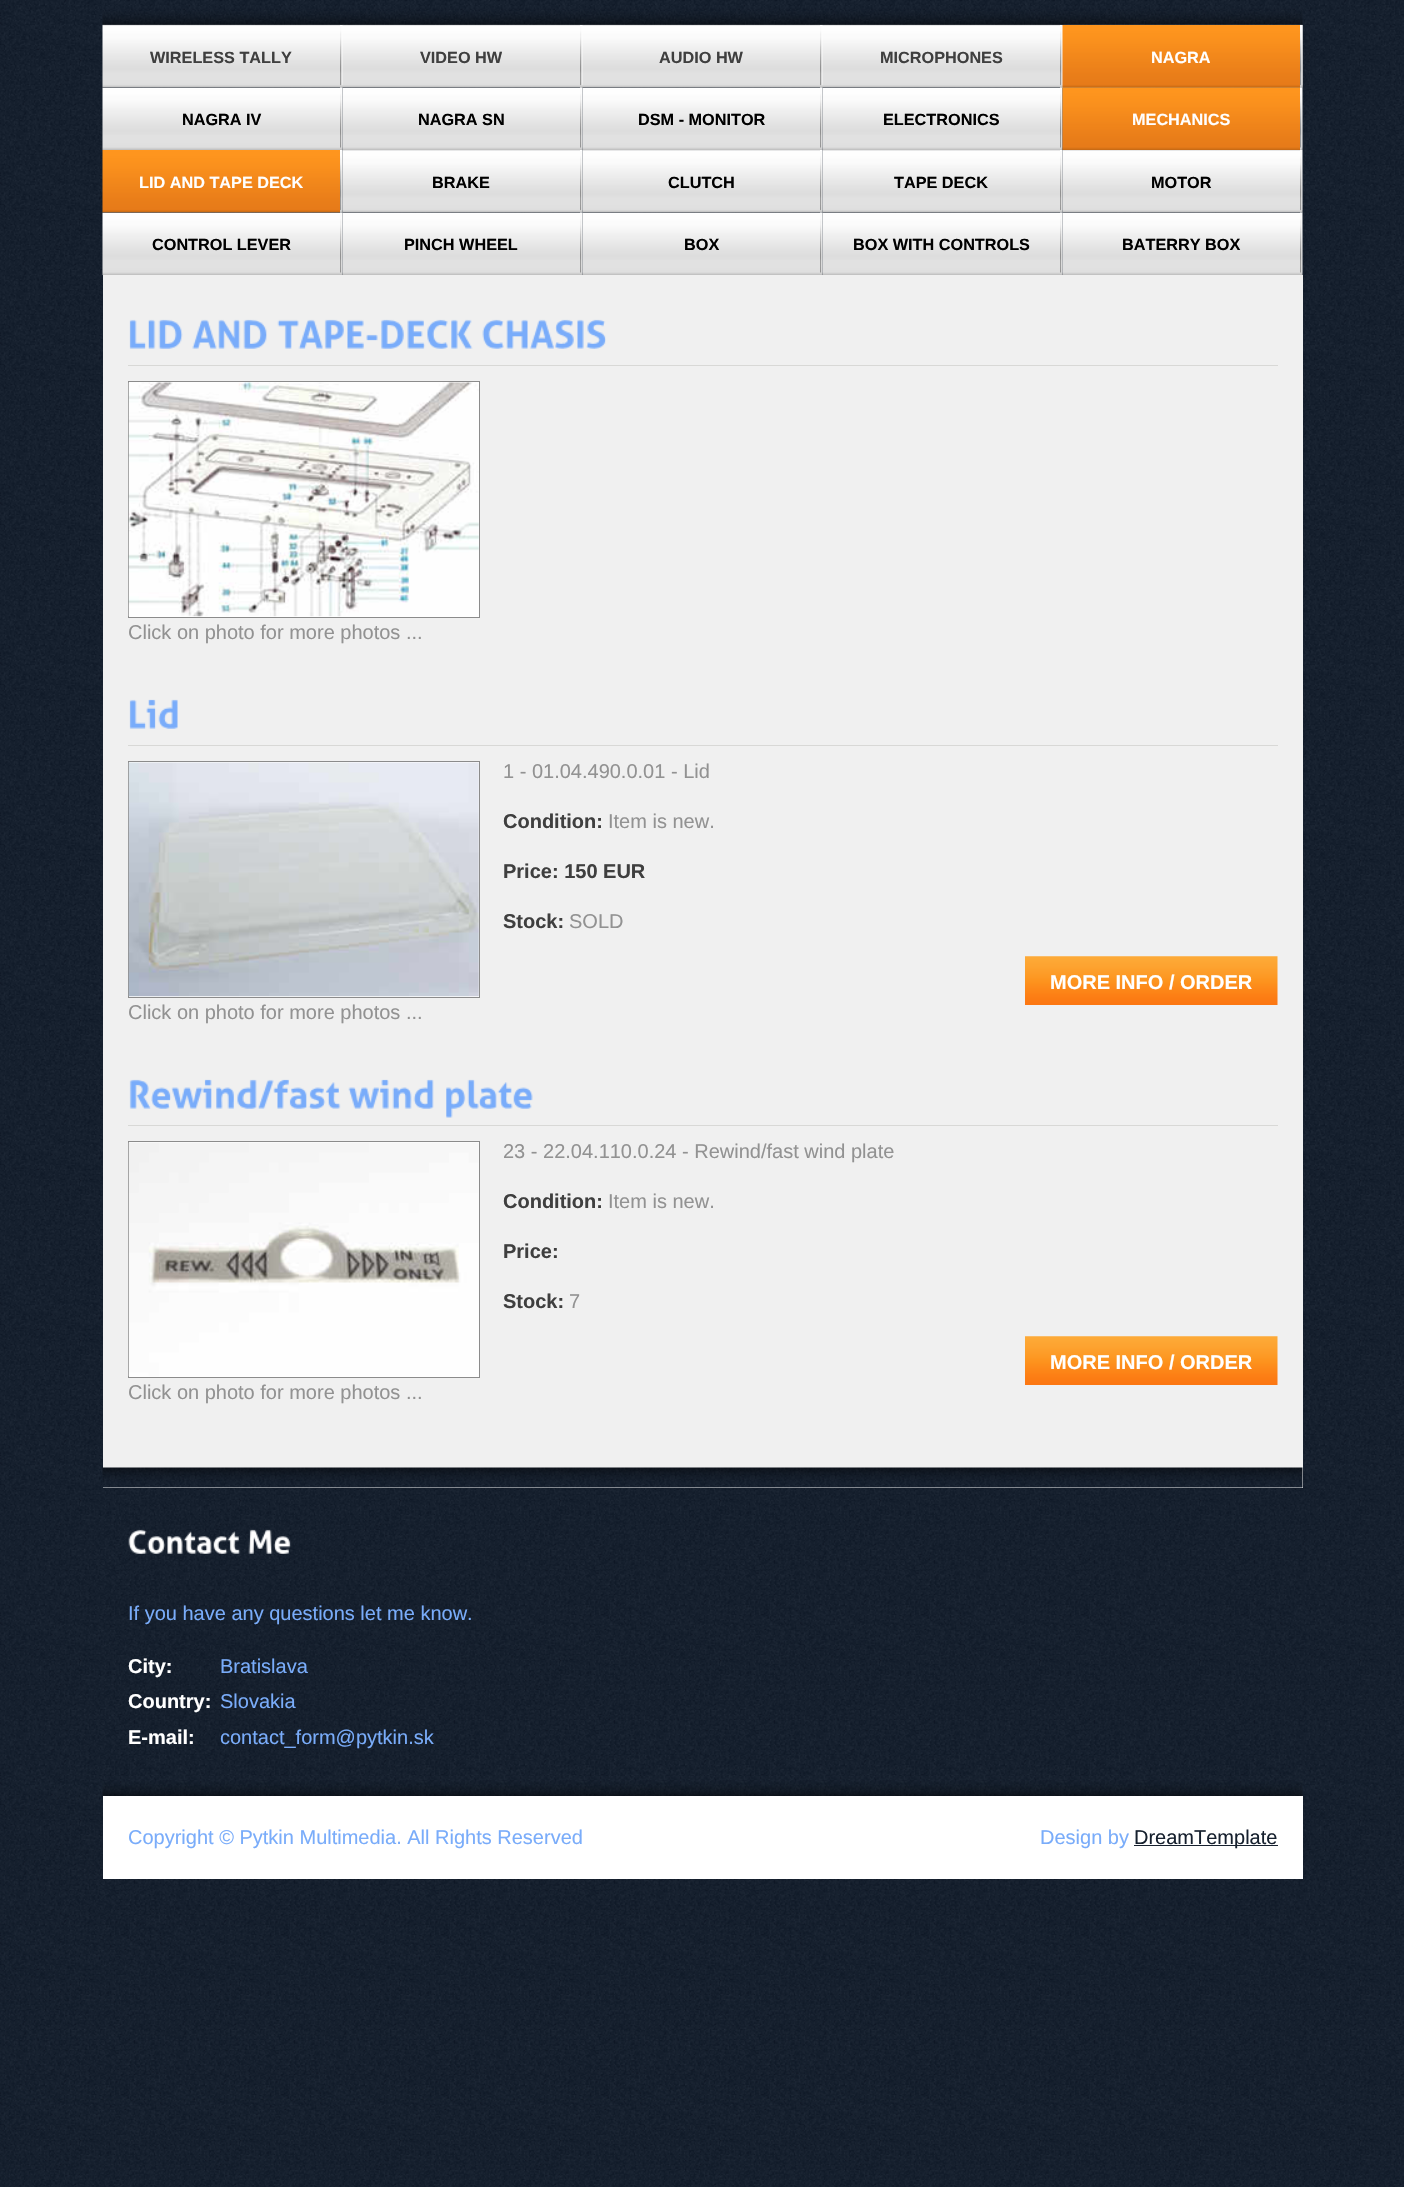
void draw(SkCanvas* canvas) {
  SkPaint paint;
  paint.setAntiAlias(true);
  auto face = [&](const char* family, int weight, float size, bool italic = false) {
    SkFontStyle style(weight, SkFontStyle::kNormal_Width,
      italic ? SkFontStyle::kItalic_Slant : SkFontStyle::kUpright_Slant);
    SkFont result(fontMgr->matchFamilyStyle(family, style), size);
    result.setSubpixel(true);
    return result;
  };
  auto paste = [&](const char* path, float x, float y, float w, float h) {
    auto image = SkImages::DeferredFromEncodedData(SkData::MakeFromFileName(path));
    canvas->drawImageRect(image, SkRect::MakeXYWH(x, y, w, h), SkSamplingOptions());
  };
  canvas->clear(0xffffffff);
  paste("img/1.png", 0, 0, 1404, 2187);
  paste("img/2.png", 102, 0, 1201, 88);
  paste("img/3.png", 340, 25, 3, 63);
  paste("img/4.png", 580, 25, 3, 63);
  paste("img/3.png", 820, 25, 3, 63);
  paste("img/4.png", 1060, 25, 3, 63);
  paste("img/5.png", 1300, 25, 3, 63);
  paste("img/6.png", 1062, 25, 238, 63);
  paste("img/7.png", 340, 87, 3, 63);
  paste("img/8.png", 102, 87, 238, 63);
  paste("img/9.png", 580, 87, 3, 63);
  paste("img/10.png", 342, 87, 238, 63);
  paste("img/11.png", 820, 87, 3, 63);
  paste("img/12.png", 582, 87, 238, 63);
  paste("img/13.png", 1060, 87, 3, 63);
  paste("img/14.png", 822, 87, 238, 63);
  paste("img/15.png", 1300, 87, 3, 63);
  paste("img/16.png", 1062, 87, 238, 63);
  paste("img/17.png", 340, 150, 3, 63);
  paste("img/18.png", 102, 150, 238, 63);
  paste("img/19.png", 580, 150, 3, 63);
  paste("img/20.png", 342, 150, 238, 63);
  paste("img/21.png", 820, 150, 3, 63);
  paste("img/22.png", 582, 150, 238, 63);
  paste("img/23.png", 1060, 150, 3, 63);
  paste("img/24.png", 822, 150, 238, 63);
  paste("img/21.png", 1300, 150, 3, 63);
  paste("img/25.png", 1062, 150, 238, 63);
  paste("img/26.png", 340, 212, 3, 63);
  paste("img/27.png", 102, 212, 238, 63);
  paste("img/28.png", 580, 212, 3, 63);
  paste("img/29.png", 342, 212, 238, 63);
  paste("img/30.png", 820, 212, 3, 63);
  paste("img/31.png", 582, 212, 238, 63);
  paste("img/32.png", 1060, 212, 3, 63);
  paste("img/33.png", 822, 212, 238, 63);
  paste("img/34.png", 1300, 212, 3, 63);
  paste("img/35.png", 1062, 212, 238, 63);
  paint.setColor(0xfff0f0f0);
  canvas->drawRect(SkRect::MakeXYWH(103, 275, 1200, 1213), paint);
  paste("img/36.png", 102, 1467, 1201, 21);
  paint.setColor(0xffd8d8d6);
  canvas->drawRect(SkRect::MakeXYWH(128, 365, 1150, 1), paint);
  paste("img/37.png", 129, 319, 54, 30);
  paste("img/38.png", 192, 319, 75, 30);
  paste("img/39.png", 277, 319, 196, 30);
  paste("img/40.png", 482, 319, 124, 30);
  paint.setColor(0xffffffff);
  canvas->drawRect(SkRect::MakeXYWH(128.5f, 381.5f, 351, 236), paint);
  paint.setStroke(true);
  paint.setStrokeWidth(1);
  paint.setColor(0xff8b8b8b);
  canvas->drawRect(SkRect::MakeXYWH(128.5f, 381.5f, 351, 236), paint);
  paste("img/41.png", 128, 382, 351, 235);
  paint.setStroke(false);
  paint.setColor(0xffd8d8d6);
  canvas->drawRect(SkRect::MakeXYWH(128, 745, 1150, 1), paint);
  paste("img/42.png", 129, 699, 49, 30);
  paste("img/43.png", 1025, 956, 253, 49);
  paint.setColor(0xffffffff);
  canvas->drawRect(SkRect::MakeXYWH(128.5f, 761.5f, 351, 236), paint);
  paint.setStroke(true);
  paint.setColor(0xff8b8b8b);
  canvas->drawRect(SkRect::MakeXYWH(128.5f, 761.5f, 351, 236), paint);
  paste("img/44.png", 128, 762, 351, 235);
  paint.setStroke(false);
  paint.setColor(0xffd8d8d6);
  canvas->drawRect(SkRect::MakeXYWH(128, 1125, 1150, 1), paint);
  paste("img/45.png", 129, 1079, 212, 30);
  paste("img/46.png", 348, 1079, 86, 30);
  paste("img/47.png", 446, 1079, 87, 39);
  paste("img/43.png", 1025, 1336, 253, 49);
  paint.setColor(0xffffffff);
  canvas->drawRect(SkRect::MakeXYWH(128.5f, 1141.5f, 351, 236), paint);
  paint.setStroke(true);
  paint.setColor(0xff8b8b8b);
  canvas->drawRect(SkRect::MakeXYWH(128.5f, 1141.5f, 351, 236), paint);
  paste("img/48.png", 128, 1142, 351, 235);
  paste("img/49.png", 102, 1776, 1201, 21);
  paste("img/50.png", 128, 1529, 113, 25);
  paste("img/51.png", 248, 1529, 43, 25);
  paint.setStroke(false);
  paint.setColor(0xffffffff);
  canvas->drawRect(SkRect::MakeXYWH(103, 1796, 1200, 83), paint);
  paint.setColor(0xff16202e);
  canvas->drawRect(SkRect::MakeXYWH(1134, 1845, 144, 1), paint);
  auto f0 = face("Liberation Sans", 700, 16.25f);
  paint.setColor(0xff3f3f3f);
  {
    const struct { const char* s; float x, y; } items[] = {
      {"WIRELESS TALLY", 150, 63},
      {"VIDEO HW", 420, 63},
      {"AUDIO HW", 659, 63},
      {"MICROPHONES", 880, 63},
    };
    for (auto [s, x, y] : items) {
      canvas->drawString(s, x, y, f0, paint);
    }
  }
  paint.setColor(0xffffffff);
  canvas->drawString("NAGRA", 1151, 63, f0, paint);
  paint.setColor(0xff000000);
  {
    const struct { const char* s; float x, y; } items[] = {
      {"NAGRA IV", 182, 125},
      {"NAGRA SN", 418, 125},
      {"DSM - MONITOR", 638, 125},
      {"ELECTRONICS", 883, 125},
    };
    for (auto [s, x, y] : items) {
      canvas->drawString(s, x, y, f0, paint);
    }
  }
  paint.setColor(0xffffffff);
  canvas->drawString("MECHANICS", 1132, 125, f0, paint);
  canvas->drawString("LID AND TAPE DECK", 139, 188, f0, paint);
  paint.setColor(0xff000000);
  {
    const struct { const char* s; float x, y; } items[] = {
      {"BRAKE", 432, 188},
      {"CLUTCH", 668, 188},
      {"TAPE DECK", 894, 188},
      {"MOTOR", 1151, 188},
      {"CONTROL LEVER", 152, 250},
      {"PINCH WHEEL", 404, 250},
      {"BOX", 684, 250},
      {"BOX WITH CONTROLS", 853, 250},
      {"BATERRY BOX", 1122, 250},
    };
    for (auto [s, x, y] : items) {
      canvas->drawString(s, x, y, f0, paint);
    }
  }
  auto f1 = face("Liberation Sans", 400, 20);
  paint.setColor(0xff929292);
  canvas->drawString("Click on photo for more photos ...", 128, 639, f1, paint);
  canvas->drawString("1 - 01.04.490.0.01 - Lid", 503, 778, f1, paint);
  auto f2 = face("Liberation Sans", 700, 20);
  paint.setColor(0xff3f3f3f);
  canvas->drawString("Condition:", 503, 828, f2, paint);
  paint.setColor(0xff929292);
  canvas->drawString("Item is new.", 608, 828, f1, paint);
  paint.setColor(0xff3f3f3f);
  canvas->drawString("Price: 150 EUR", 503, 878, f2, paint);
  canvas->drawString("Stock:", 503, 928, f2, paint);
  paint.setColor(0xff929292);
  canvas->drawString("SOLD", 569, 928, f1, paint);
  paint.setColor(0xffffffff);
  canvas->drawString("MORE INFO / ORDER", 1050, 989, f2, paint);
  paint.setColor(0xff929292);
  canvas->drawString("Click on photo for more photos ...", 128, 1019, f1, paint);
  canvas->drawString("23 - 22.04.110.0.24 - Rewind/fast wind plate", 503, 1158, f1, paint);
  paint.setColor(0xff3f3f3f);
  canvas->drawString("Condition:", 503, 1208, f2, paint);
  paint.setColor(0xff929292);
  canvas->drawString("Item is new.", 608, 1208, f1, paint);
  paint.setColor(0xff3f3f3f);
  canvas->drawString("Price:", 503, 1258, f2, paint);
  canvas->drawString("Stock:", 503, 1308, f2, paint);
  paint.setColor(0xff929292);
  canvas->drawString("7", 569, 1308, f1, paint);
  paint.setColor(0xffffffff);
  canvas->drawString("MORE INFO / ORDER", 1050, 1369, f2, paint);
  paint.setColor(0xff929292);
  canvas->drawString("Click on photo for more photos ...", 128, 1399, f1, paint);
  paint.setColor(0xff79acfa);
  canvas->drawString("If you have any questions let me know.", 128, 1620, f1, paint);
  paint.setColor(0xffffffff);
  canvas->drawString("City:", 128, 1673, f2, paint);
  paint.setColor(0xff79acfa);
  canvas->drawString("Bratislava", 220, 1673, f1, paint);
  paint.setColor(0xffffffff);
  canvas->drawString("Country:", 128, 1708, f2, paint);
  paint.setColor(0xff79acfa);
  canvas->drawString("Slovakia", 220, 1708, f1, paint);
  paint.setColor(0xffffffff);
  canvas->drawString("E-mail:", 128, 1744, f2, paint);
  paint.setColor(0xff79acfa);
  {
    const struct { const char* s; float x, y; } items[] = {
      {"contact_form@pytkin.sk", 220, 1744},
      {"Copyright © Pytkin Multimedia. All Rights Reserved", 128, 1844},
      {"Design by", 1040, 1844},
    };
    for (auto [s, x, y] : items) {
      canvas->drawString(s, x, y, f1, paint);
    }
  }
  paint.setColor(0xff16202e);
  canvas->drawString("DreamTemplate", 1134, 1844, f1, paint);
}
